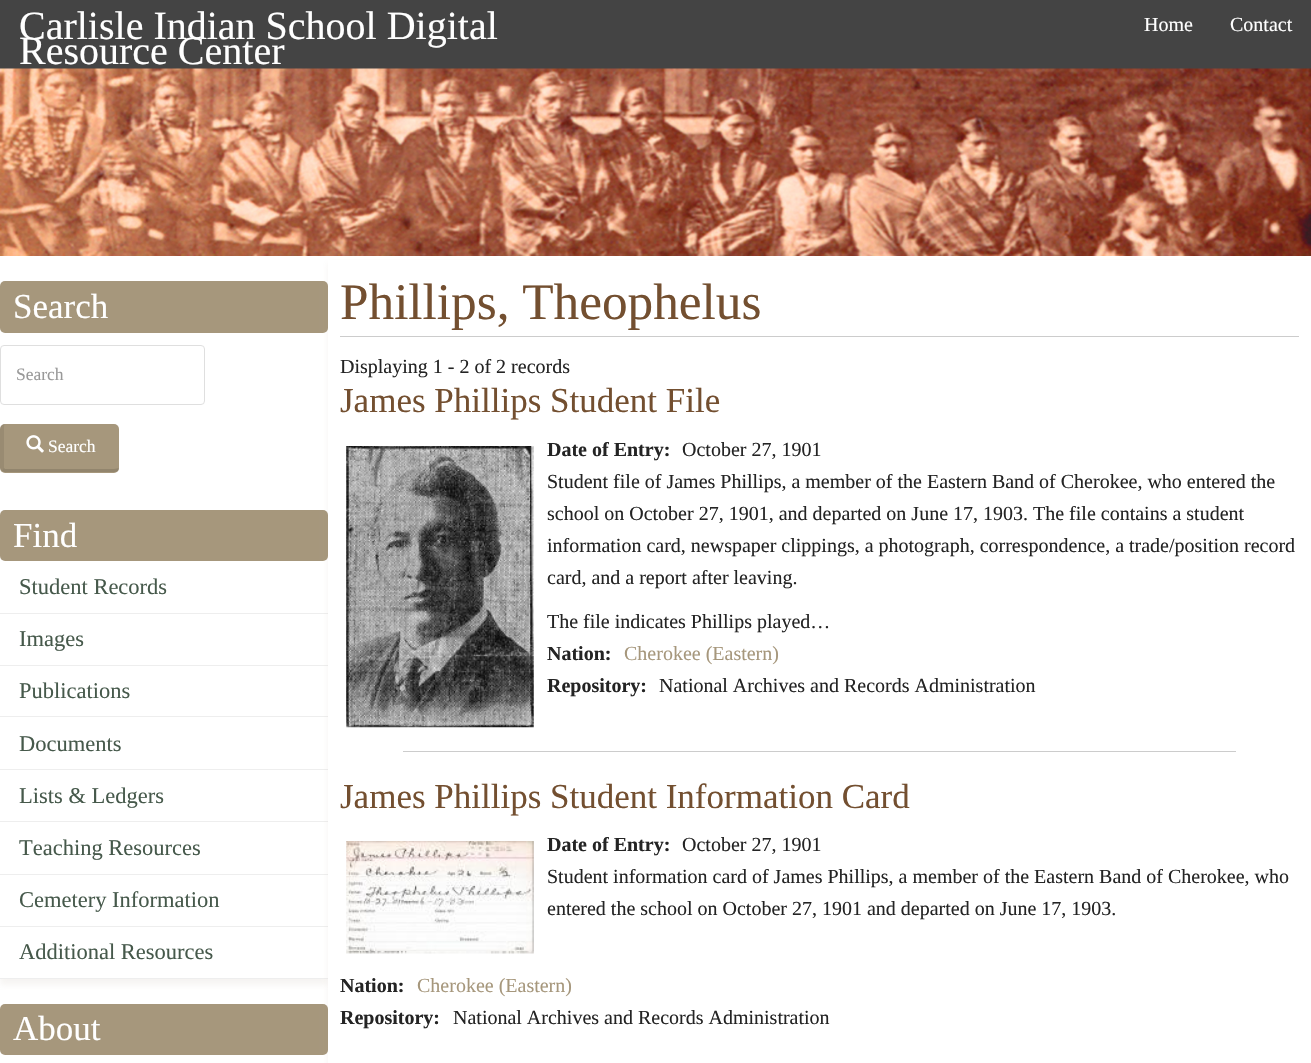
void draw(SkCanvas* canvas) {
  SkPaint paint;
  paint.setAntiAlias(true);
  auto face = [&](const char* family, int weight, float size, bool italic = false) {
    SkFontStyle style(weight, SkFontStyle::kNormal_Width,
      italic ? SkFontStyle::kItalic_Slant : SkFontStyle::kUpright_Slant);
    SkFont result(fontMgr->matchFamilyStyle(family, style), size);
    result.setSubpixel(true);
    return result;
  };
  auto paste = [&](const char* path, float x, float y, float w, float h) {
    auto image = SkImages::DeferredFromEncodedData(SkData::MakeFromFileName(path));
    canvas->drawImageRect(image, SkRect::MakeXYWH(x, y, w, h), SkSamplingOptions());
  };
  auto shape = [&](const char* data, bool evenOdd = false) {
    SkPath result = *SkParsePath::FromSVGString(data);
    if (evenOdd) result.setFillType(SkPathFillType::kEvenOdd);
    return result;
  };
  canvas->clear(0xffffffff);
  paint.setColor(0xff444444);
  canvas->drawRect(SkRect::MakeXYWH(0, 0, 1311, 69), paint);
  paste("img/1.png", 0, 68, 1311, 188);
  paint.setColor(0xffa6977c);
  canvas->drawRoundRect(SkRect::MakeXYWH(0, 281, 328, 52), 5, 5, paint);
  paint.setStroke(true);
  paint.setStrokeWidth(1);
  paint.setColor(0xffdfdfdf);
  canvas->drawRoundRect(SkRect::MakeXYWH(0.5f, 345.5f, 204, 59), 3.5f, 3.5f, paint);
  paint.setStroke(false);
  paint.setColor(0xffa6977c);
  canvas->drawRoundRect(SkRect::MakeXYWH(0, 424, 119, 49), 5, 5, paint);
  paint.setColor(0x1f000000);
  canvas->drawPath(shape("M119 468C119 469 119 470 118 471L115 472H4L2 471L4 468L5 469H114C116 469 118 468 119 468Z"), paint);
  paint.setColor(0x14000000);
  canvas->drawPath(shape("M5 424C4 424 4 428 4 429V468L2 471C1 470 0 469 0 468V429C0 426 2 424 5 424Z"), paint);
  paste("img/2.png", 26, 435, 18, 18);
  canvas->save();
  canvas->clipPath(shape("M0 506H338V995H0ZM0 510H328V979H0Z", true), true);
  paint.setColor(0x1aa6977c);
  paint.setMaskFilter(SkMaskFilter::MakeBlur(kNormal_SkBlurStyle, 3));
  canvas->drawRect(SkRect::MakeXYWH(0, 516, 328, 469), paint);
  paint.setMaskFilter(nullptr);
  canvas->restore();
  paint.setColor(0xffa6977c);
  canvas->drawRoundRect(SkRect::MakeXYWH(0, 510, 328, 51), 5, 5, paint);
  {
    const struct { float x, y, w, h; SkColor color; } items[] = {
      {0, 613, 328, 1, 0xffeeeeee},
      {0, 665, 328, 1, 0xffeeeeee},
      {0, 716, 328, 1, 0xffeeeeee},
      {0, 769, 328, 1, 0xffeeeeee},
      {0, 821, 328, 1, 0xffeeeeee},
      {0, 874, 328, 1, 0xffeeeeee},
      {0, 926, 328, 1, 0xffeeeeee},
      {0, 978, 328, 1, 0xffeeeeee},
    };
    for (auto [x, y, w, h, color] : items) {
      paint.setColor(color);
      canvas->drawRect(SkRect::MakeXYWH(x, y, w, h), paint);
    }
  }
  paint.setColor(0xffa6977c);
  canvas->drawRoundRect(SkRect::MakeXYWH(0, 1004, 328, 51), 5, 5, paint);
  paint.setColor(0x1aa6977c);
  paint.setMaskFilter(SkMaskFilter::MakeBlur(kNormal_SkBlurStyle, 3));
  canvas->drawRect(SkRect::MakeXYWH(328, 263, 983, 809), paint);
  paint.setMaskFilter(nullptr);
  paint.setColor(0xffffffff);
  canvas->drawRect(SkRect::MakeXYWH(328, 260, 983, 803), paint);
  paint.setColor(0xffcccccc);
  canvas->drawRect(SkRect::MakeXYWH(340, 336, 959, 1), paint);
  paste("img/3.png", 346, 446, 188, 282);
  canvas->drawRect(SkRect::MakeXYWH(403, 751, 833, 1), paint);
  paste("img/4.png", 346, 841, 188, 113);
  auto f0 = face("Liberation Serif", 400, 40);
  paint.setColor(0xffffffff);
  canvas->drawString("Carlisle Indian School Digital", 19, 39, f0, paint);
  canvas->drawString("Resource Center", 19, 64, f0, paint);
  auto f1 = face("Liberation Serif", 400, 20);
  canvas->drawString("Home", 1144, 31, f1, paint);
  canvas->drawString("Contact", 1230, 31, f1, paint);
  auto f2 = face("Liberation Serif", 400, 35);
  canvas->drawString("Search", 13, 318, f2, paint);
  auto f3 = face("Liberation Serif", 400, 17.5f);
  paint.setColor(0xff999999);
  canvas->drawString("Search", 16, 380, f3, paint);
  paint.setColor(0xffffffff);
  canvas->drawString("Search", 48, 452, f3, paint);
  canvas->drawString("Find", 13, 547, f2, paint);
  auto f4 = face("Liberation Serif", 400, 22.5f);
  paint.setColor(0xff46594b);
  {
    const struct { const char* s; float x, y; } items[] = {
      {"Student Records", 19, 594},
      {"Images", 19, 646},
      {"Publications", 19, 698},
      {"Documents", 19, 751},
      {"Lists & Ledgers", 19, 803},
      {"Teaching Resources", 19, 855},
      {"Cemetery Information", 19, 907},
      {"Additional Resources", 19, 959},
    };
    for (auto [s, x, y] : items) {
      canvas->drawString(s, x, y, f4, paint);
    }
  }
  paint.setColor(0xffffffff);
  canvas->drawString("About", 13, 1040, f2, paint);
  auto f5 = face("Liberation Serif", 400, 51.25f);
  paint.setColor(0xff734f30);
  canvas->drawString("Phillips, Theophelus", 340, 319, f5, paint);
  paint.setColor(0xff242424);
  canvas->drawString("Displaying 1 - 2 of 2 records", 340, 373, f1, paint);
  paint.setColor(0xff734f30);
  canvas->drawString("James Phillips Student File", 340, 412, f2, paint);
  auto f6 = face("Liberation Serif", 700, 20);
  paint.setColor(0xff242424);
  canvas->drawString("Date of Entry:", 547, 456, f6, paint);
  {
    const struct { const char* s; float x, y; } items[] = {
      {"October 27, 1901", 682, 456},
      {"Student file of James Phillips, a member of the Eastern Band of Cherokee, who entered the", 547, 488},
      {"school on October 27, 1901, and departed on June 17, 1903. The file contains a student", 547, 520},
      {"information card, newspaper clippings, a photograph, correspondence, a trade/position record", 547, 552},
      {"card, and a report after leaving.", 547, 584},
      {"The file indicates Phillips played…", 547, 628},
    };
    for (auto [s, x, y] : items) {
      canvas->drawString(s, x, y, f1, paint);
    }
  }
  canvas->drawString("Nation:", 547, 660, f6, paint);
  paint.setColor(0xffa6977c);
  canvas->drawString("Cherokee (Eastern)", 624, 660, f1, paint);
  paint.setColor(0xff242424);
  canvas->drawString("Repository:", 547, 692, f6, paint);
  canvas->drawString("National Archives and Records Administration", 659, 692, f1, paint);
  paint.setColor(0xff734f30);
  canvas->drawString("James Phillips Student Information Card", 340, 808, f2, paint);
  paint.setColor(0xff242424);
  canvas->drawString("Date of Entry:", 547, 851, f6, paint);
  {
    const struct { const char* s; float x, y; } items[] = {
      {"October 27, 1901", 682, 851},
      {"Student information card of James Phillips, a member of the Eastern Band of Cherokee, who", 547, 883},
      {"entered the school on October 27, 1901 and departed on June 17, 1903.", 547, 915},
    };
    for (auto [s, x, y] : items) {
      canvas->drawString(s, x, y, f1, paint);
    }
  }
  canvas->drawString("Nation:", 340, 992, f6, paint);
  paint.setColor(0xffa6977c);
  canvas->drawString("Cherokee (Eastern)", 417, 992, f1, paint);
  paint.setColor(0xff242424);
  canvas->drawString("Repository:", 340, 1024, f6, paint);
  canvas->drawString("National Archives and Records Administration", 453, 1024, f1, paint);
}
